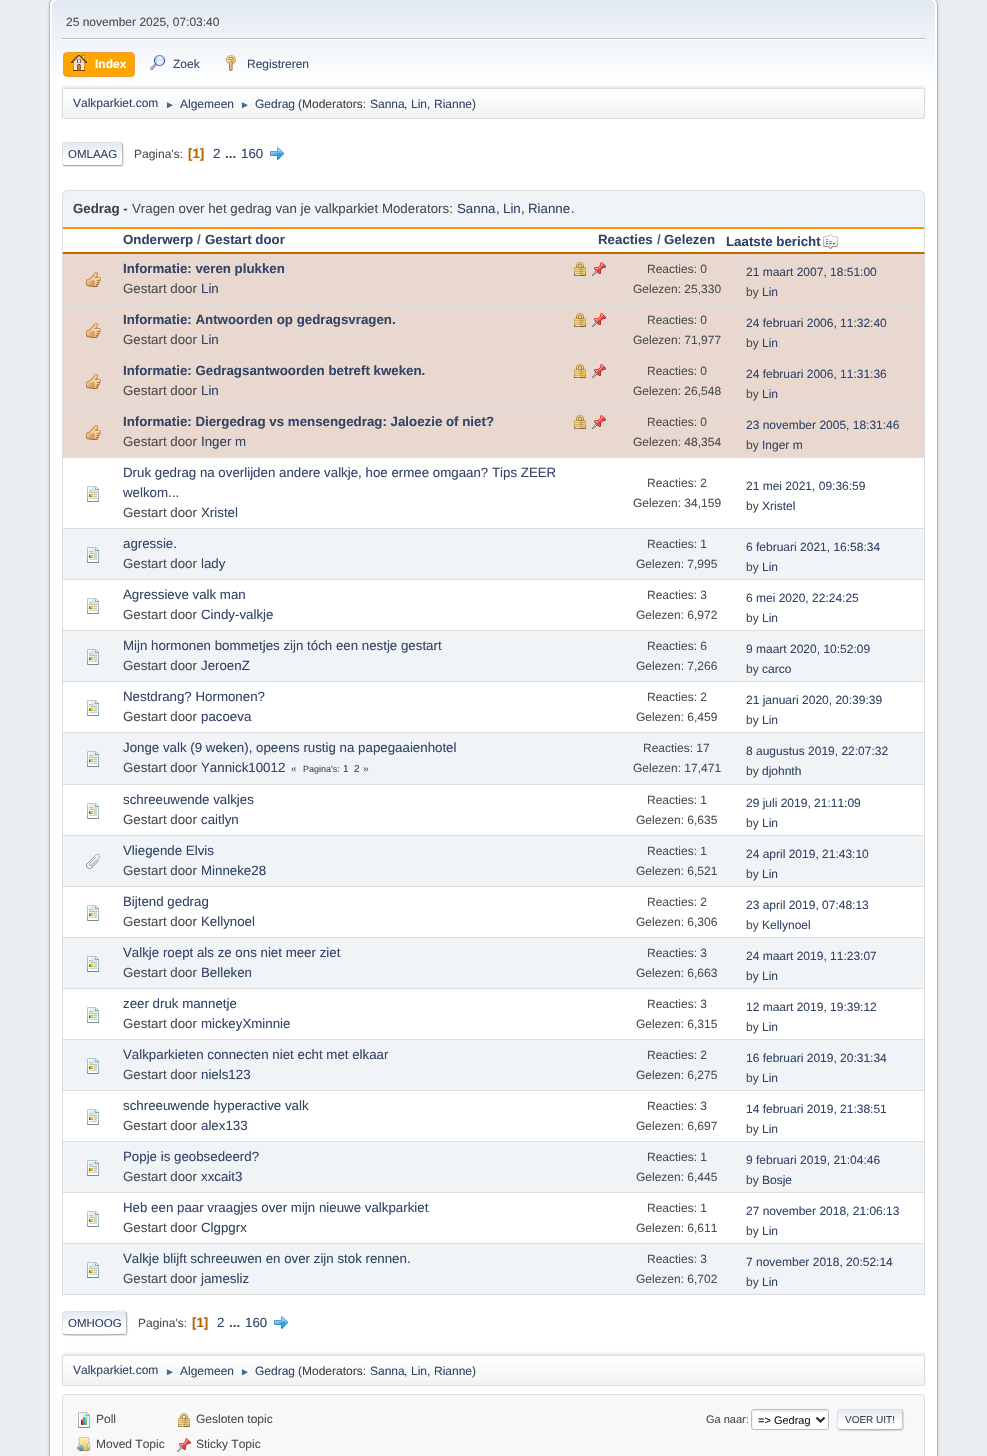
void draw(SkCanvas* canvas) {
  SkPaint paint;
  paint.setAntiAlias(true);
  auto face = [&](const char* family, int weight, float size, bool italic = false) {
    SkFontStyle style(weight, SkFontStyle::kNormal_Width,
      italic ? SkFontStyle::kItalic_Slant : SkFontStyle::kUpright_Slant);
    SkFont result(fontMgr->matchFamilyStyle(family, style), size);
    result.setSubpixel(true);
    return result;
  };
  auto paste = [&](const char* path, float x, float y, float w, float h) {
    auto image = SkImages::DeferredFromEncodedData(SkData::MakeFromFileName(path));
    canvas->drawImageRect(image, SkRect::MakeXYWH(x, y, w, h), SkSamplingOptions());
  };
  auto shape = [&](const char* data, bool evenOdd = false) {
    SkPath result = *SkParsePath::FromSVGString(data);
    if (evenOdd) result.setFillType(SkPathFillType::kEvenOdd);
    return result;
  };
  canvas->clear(0xffe9eef2);
  paint.setColor(0x24000000);
  paint.setMaskFilter(SkMaskFilter::MakeBlur(kNormal_SkBlurStyle, 1.5f));
  canvas->drawRoundRect(SkRect::MakeXYWH(49, -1, 889, 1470), 8, 8, paint);
  paint.setMaskFilter(nullptr);
  paint.setColor(0xffffffff);
  canvas->drawRoundRect(SkRect::MakeXYWH(49.5f, -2.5f, 888, 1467), 7.5f, 7.5f, paint);
  paint.setStroke(true);
  paint.setStrokeWidth(1);
  paint.setColor(0xffb8b8b8);
  canvas->drawRoundRect(SkRect::MakeXYWH(49.5f, -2.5f, 888, 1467), 7.5f, 7.5f, paint);
  paint.setStroke(false);
  {
    const SkColor colors[] = {0xffe2e9f3, 0xffffffff};
    const float stops[] = {0, 0.7f};
    const SkPoint ends[] = {{494, 0}, {494, 121}};
    paint.setShader(SkGradientShader::MakeLinear(ends, colors, stops, 2, SkTileMode::kClamp));
    paint.setAlpha(255);
  }
  canvas->drawPath(shape("M58 0H929C932.5 0 935 2.5 935 6V121H52V6C52 2.5 54.5 0 58 0Z"), paint);
  paint.setShader(nullptr);
  paint.setColor(0xffffffff);
  canvas->drawRect(SkRect::MakeXYWH(62, 39, 863, 1), paint);
  paint.setColor(0xffbbbbbb);
  canvas->drawRect(SkRect::MakeXYWH(62, 38, 863, 1), paint);
  paint.setColor(0xffffa500);
  canvas->drawRoundRect(SkRect::MakeXYWH(63.5f, 52.5f, 71, 24), 3.5f, 3.5f, paint);
  paint.setStroke(true);
  paint.setColor(0xfff49a3a);
  canvas->drawRoundRect(SkRect::MakeXYWH(63.5f, 52.5f, 71, 24), 3.5f, 3.5f, paint);
  paste("img/1.png", 71, 55, 16, 16);
  paste("img/2.png", 150, 55, 15, 15);
  paste("img/3.png", 226, 55, 10, 16);
  paint.setStroke(false);
  paint.setColor(0x14000000);
  paint.setMaskFilter(SkMaskFilter::MakeBlur(kNormal_SkBlurStyle, 1));
  canvas->drawRoundRect(SkRect::MakeXYWH(62, 86, 863, 31), 2, 2, paint);
  paint.setMaskFilter(nullptr);
  canvas->save();
  canvas->clipPath(shape("M64 88H923C924 88 925 89 925 90V117C925 118 924 119 923 119H64C63 119 62 118 62 117V90C62 89 63 88 64 88Z"), true);
  {
    const SkColor colors[] = {0xffffffff, 0xfff1f3f5};
    const float stops[] = {0, 0.95f};
    const SkPoint ends[] = {{494, 89}, {494, 118}};
    paint.setShader(SkGradientShader::MakeLinear(ends, colors, stops, 2, SkTileMode::kClamp));
    paint.setAlpha(255);
  }
  canvas->drawRect(SkRect::MakeXYWH(62, 89, 863, 29), paint);
  canvas->restore();
  paint.setStroke(true);
  paint.setShader(nullptr);
  paint.setColor(0xffdddddd);
  canvas->drawRoundRect(SkRect::MakeXYWH(62.5f, 88.5f, 862, 30), 1.5f, 1.5f, paint);
  paint.setStroke(false);
  paint.setColor(0x1a000000);
  paint.setMaskFilter(SkMaskFilter::MakeBlur(kNormal_SkBlurStyle, 0.5f));
  canvas->drawRoundRect(SkRect::MakeXYWH(63, 143, 61, 24), 3, 3, paint);
  paint.setMaskFilter(nullptr);
  paint.setColor(0xffffffff);
  canvas->drawRoundRect(SkRect::MakeXYWH(62, 142, 61, 24), 3, 3, paint);
  canvas->save();
  canvas->clipPath(shape("M65 142H120C121.5 142 123 143.5 123 145V163C123 164.5 121.5 166 120 166H65C63.5 166 62 164.5 62 163V145C62 143.5 63.5 142 65 142Z"), true);
  {
    const SkColor colors[] = {0xffe2e9f3, 0xffffffff};
    const float stops[] = {0, 0.7f};
    const SkPoint ends[] = {{93, 143}, {93, 165}};
    paint.setShader(SkGradientShader::MakeLinear(ends, colors, stops, 2, SkTileMode::kClamp));
    paint.setAlpha(255);
  }
  canvas->drawRect(SkRect::MakeXYWH(62, 143, 61, 22), paint);
  canvas->restore();
  paint.setStroke(true);
  paint.setShader(nullptr);
  paint.setColor(0xffbbbbbb);
  canvas->drawPath(shape("M122 143C122 143.5 122.5 144.5 122.5 145V163C122.5 163.5 122 164.5 122 165"), paint);
  paint.setColor(0xffaaaaaa);
  canvas->drawPath(shape("M122 165L120 165.5H65L63 165"), paint);
  canvas->save();
  canvas->clipRect(SkRect::MakeXYWH(62, 130, 863, 48));
  paint.setColor(0xffdddddd);
  canvas->drawPath(shape("M63 165C61.5 163 62.5 156 62.5 154C62.5 140.5 60.5 142.5 74 142.5H111C114.5 142.5 119 140.5 122 143"), paint);
  canvas->restore();
  paste("img/4.png", 270, 147, 14, 13);
  paint.setStroke(false);
  paint.setColor(0xfff0f4f7);
  canvas->drawPath(shape("M68 190H919C922.5 190 925 192.5 925 196V227H62V196C62 192.5 64.5 190 68 190Z"), paint);
  paint.setColor(0xffdddddd);
  canvas->drawPath(shape("M68 190H919C922 190 925 193 925 196V227H62V196C62 193 65 190 68 190ZM68 191H919C922 191 924 193 924 196V227H63V196C63 193 65 191 68 191Z", true), paint);
  paint.setColor(0xffff9400);
  canvas->drawPath(shape("M62 227H925L924 229H63Z"), paint);
  paint.setColor(0xffdddddd);
  canvas->drawPath(shape("M925 227V254L924 252V229Z"), paint);
  paint.setColor(0xffbf6900);
  canvas->drawPath(shape("M925 254H62L63 252H924Z"), paint);
  paint.setColor(0xffdddddd);
  canvas->drawPath(shape("M62 254V227L63 229V252Z"), paint);
  paste("img/5.png", 823, 234, 15, 15);
  {
    const struct { float x, y, w, h; SkColor color; } items[] = {
      {63, 254, 861, 50, 0xffe8d8cf},
      {924, 254, 1, 837, 0xffdddddd},
      {62, 304, 863, 1, 0xffdddddd},
      {62, 254, 1, 51, 0xffdddddd},
    };
    for (auto [x, y, w, h, color] : items) {
      paint.setColor(color);
      canvas->drawRect(SkRect::MakeXYWH(x, y, w, h), paint);
    }
  }
  paste("img/6.png", 86, 272, 15, 15);
  paste("img/7.png", 574, 262, 12, 14);
  paste("img/8.png", 592, 262, 14, 14);
  {
    const struct { float x, y, w, h; SkColor color; } items[] = {
      {63, 305, 861, 50, 0xffe8d8cf},
      {62, 355, 863, 1, 0xffdddddd},
      {62, 305, 1, 51, 0xffdddddd},
    };
    for (auto [x, y, w, h, color] : items) {
      paint.setColor(color);
      canvas->drawRect(SkRect::MakeXYWH(x, y, w, h), paint);
    }
  }
  paste("img/6.png", 86, 323, 15, 15);
  paste("img/7.png", 574, 313, 12, 14);
  paste("img/8.png", 592, 313, 14, 14);
  {
    const struct { float x, y, w, h; SkColor color; } items[] = {
      {63, 356, 861, 50, 0xffe8d8cf},
      {62, 406, 863, 1, 0xffdddddd},
      {62, 356, 1, 51, 0xffdddddd},
    };
    for (auto [x, y, w, h, color] : items) {
      paint.setColor(color);
      canvas->drawRect(SkRect::MakeXYWH(x, y, w, h), paint);
    }
  }
  paste("img/6.png", 86, 374, 15, 15);
  paste("img/7.png", 574, 364, 12, 14);
  paste("img/8.png", 592, 364, 14, 14);
  {
    const struct { float x, y, w, h; SkColor color; } items[] = {
      {63, 407, 861, 50, 0xffe8d8cf},
      {62, 457, 863, 1, 0xffdddddd},
      {62, 407, 1, 51, 0xffdddddd},
    };
    for (auto [x, y, w, h, color] : items) {
      paint.setColor(color);
      canvas->drawRect(SkRect::MakeXYWH(x, y, w, h), paint);
    }
  }
  paste("img/6.png", 86, 425, 15, 15);
  paste("img/7.png", 574, 415, 12, 14);
  paste("img/8.png", 592, 415, 14, 14);
  canvas->drawRect(SkRect::MakeXYWH(62, 528, 863, 1), paint);
  canvas->drawRect(SkRect::MakeXYWH(62, 458, 1, 71), paint);
  paste("img/9.png", 87, 486, 12, 16);
  {
    const struct { float x, y, w, h; SkColor color; } items[] = {
      {63, 529, 861, 50, 0xfff0f4f7},
      {62, 579, 863, 1, 0xffdddddd},
      {62, 529, 1, 51, 0xffdddddd},
    };
    for (auto [x, y, w, h, color] : items) {
      paint.setColor(color);
      canvas->drawRect(SkRect::MakeXYWH(x, y, w, h), paint);
    }
  }
  paste("img/10.png", 87, 547, 12, 16);
  canvas->drawRect(SkRect::MakeXYWH(62, 630, 863, 1), paint);
  canvas->drawRect(SkRect::MakeXYWH(62, 580, 1, 51), paint);
  paste("img/9.png", 87, 598, 12, 16);
  {
    const struct { float x, y, w, h; SkColor color; } items[] = {
      {63, 631, 861, 50, 0xfff0f4f7},
      {62, 681, 863, 1, 0xffdddddd},
      {62, 631, 1, 51, 0xffdddddd},
    };
    for (auto [x, y, w, h, color] : items) {
      paint.setColor(color);
      canvas->drawRect(SkRect::MakeXYWH(x, y, w, h), paint);
    }
  }
  paste("img/10.png", 87, 649, 12, 16);
  canvas->drawRect(SkRect::MakeXYWH(62, 732, 863, 1), paint);
  canvas->drawRect(SkRect::MakeXYWH(62, 682, 1, 51), paint);
  paste("img/9.png", 87, 700, 12, 16);
  {
    const struct { float x, y, w, h; SkColor color; } items[] = {
      {63, 733, 861, 51, 0xfff0f4f7},
      {62, 784, 863, 1, 0xffdddddd},
      {62, 733, 1, 52, 0xffdddddd},
    };
    for (auto [x, y, w, h, color] : items) {
      paint.setColor(color);
      canvas->drawRect(SkRect::MakeXYWH(x, y, w, h), paint);
    }
  }
  paste("img/10.png", 87, 751, 12, 16);
  canvas->drawRect(SkRect::MakeXYWH(62, 835, 863, 1), paint);
  canvas->drawRect(SkRect::MakeXYWH(62, 785, 1, 51), paint);
  paste("img/9.png", 87, 803, 12, 16);
  {
    const struct { float x, y, w, h; SkColor color; } items[] = {
      {63, 836, 861, 50, 0xfff0f4f7},
      {62, 886, 863, 1, 0xffdddddd},
      {62, 836, 1, 51, 0xffdddddd},
    };
    for (auto [x, y, w, h, color] : items) {
      paint.setColor(color);
      canvas->drawRect(SkRect::MakeXYWH(x, y, w, h), paint);
    }
  }
  paste("img/11.png", 86, 854, 14, 15);
  canvas->drawRect(SkRect::MakeXYWH(62, 937, 863, 1), paint);
  canvas->drawRect(SkRect::MakeXYWH(62, 887, 1, 51), paint);
  paste("img/9.png", 87, 905, 12, 16);
  {
    const struct { float x, y, w, h; SkColor color; } items[] = {
      {63, 938, 861, 50, 0xfff0f4f7},
      {62, 988, 863, 1, 0xffdddddd},
      {62, 938, 1, 51, 0xffdddddd},
    };
    for (auto [x, y, w, h, color] : items) {
      paint.setColor(color);
      canvas->drawRect(SkRect::MakeXYWH(x, y, w, h), paint);
    }
  }
  paste("img/10.png", 87, 956, 12, 16);
  canvas->drawRect(SkRect::MakeXYWH(62, 1039, 863, 1), paint);
  canvas->drawRect(SkRect::MakeXYWH(62, 989, 1, 51), paint);
  paste("img/9.png", 87, 1007, 12, 16);
  {
    const struct { float x, y, w, h; SkColor color; } items[] = {
      {63, 1040, 861, 50, 0xfff0f4f7},
      {62, 1090, 863, 1, 0xffdddddd},
      {62, 1040, 1, 51, 0xffdddddd},
    };
    for (auto [x, y, w, h, color] : items) {
      paint.setColor(color);
      canvas->drawRect(SkRect::MakeXYWH(x, y, w, h), paint);
    }
  }
  paste("img/10.png", 87, 1058, 12, 16);
  {
    const struct { float x, y, w, h; SkColor color; } items[] = {
      {924, 1091, 1, 204, 0xffdddddd},
      {62, 1141, 863, 1, 0xffdddddd},
      {62, 1091, 1, 51, 0xffdddddd},
    };
    for (auto [x, y, w, h, color] : items) {
      paint.setColor(color);
      canvas->drawRect(SkRect::MakeXYWH(x, y, w, h), paint);
    }
  }
  paste("img/9.png", 87, 1109, 12, 16);
  {
    const struct { float x, y, w, h; SkColor color; } items[] = {
      {63, 1142, 861, 50, 0xfff0f4f7},
      {62, 1192, 863, 1, 0xffdddddd},
      {62, 1142, 1, 51, 0xffdddddd},
    };
    for (auto [x, y, w, h, color] : items) {
      paint.setColor(color);
      canvas->drawRect(SkRect::MakeXYWH(x, y, w, h), paint);
    }
  }
  paste("img/10.png", 87, 1160, 12, 16);
  canvas->drawRect(SkRect::MakeXYWH(62, 1243, 863, 1), paint);
  canvas->drawRect(SkRect::MakeXYWH(62, 1193, 1, 51), paint);
  paste("img/9.png", 87, 1211, 12, 16);
  {
    const struct { float x, y, w, h; SkColor color; } items[] = {
      {63, 1244, 861, 50, 0xfff0f4f7},
      {62, 1294, 863, 1, 0xffdddddd},
      {62, 1244, 1, 51, 0xffdddddd},
    };
    for (auto [x, y, w, h, color] : items) {
      paint.setColor(color);
      canvas->drawRect(SkRect::MakeXYWH(x, y, w, h), paint);
    }
  }
  paste("img/10.png", 87, 1262, 12, 16);
  paint.setColor(0x1a000000);
  paint.setMaskFilter(SkMaskFilter::MakeBlur(kNormal_SkBlurStyle, 0.5f));
  canvas->drawRoundRect(SkRect::MakeXYWH(63, 1312, 65, 24), 3, 3, paint);
  paint.setMaskFilter(nullptr);
  paint.setColor(0xffffffff);
  canvas->drawRoundRect(SkRect::MakeXYWH(62, 1311, 65, 24), 3, 3, paint);
  canvas->save();
  canvas->clipPath(shape("M65 1311H124C125.5 1311 127 1312.5 127 1314V1332C127 1333.5 125.5 1335 124 1335H65C63.5 1335 62 1333.5 62 1332V1314C62 1312.5 63.5 1311 65 1311Z"), true);
  {
    const SkColor colors[] = {0xffe2e9f3, 0xffffffff};
    const float stops[] = {0, 0.7f};
    const SkPoint ends[] = {{95, 1312}, {95, 1334}};
    paint.setShader(SkGradientShader::MakeLinear(ends, colors, stops, 2, SkTileMode::kClamp));
    paint.setAlpha(255);
  }
  canvas->drawRect(SkRect::MakeXYWH(62, 1312, 65, 22), paint);
  {
    const SkColor colors[] = {0xffe2e9f3, 0xffffffff};
    const float stops[] = {0, 0.7f};
    const SkPoint ends[] = {{95, 1334}, {95, 1356}};
    paint.setShader(SkGradientShader::MakeLinear(ends, colors, stops, 2, SkTileMode::kClamp));
    paint.setAlpha(255);
  }
  canvas->drawRect(SkRect::MakeXYWH(62, 1334, 65, 1), paint);
  canvas->restore();
  paint.setStroke(true);
  paint.setShader(nullptr);
  paint.setColor(0xffbbbbbb);
  canvas->drawPath(shape("M126 1312C126 1312.5 126.5 1313.5 126.5 1314V1332C126.5 1332.5 126 1333.5 126 1334"), paint);
  paint.setColor(0xffaaaaaa);
  canvas->drawPath(shape("M126 1334H125.5C124.5 1335 70 1335 65 1334.5L63 1334"), paint);
  canvas->save();
  canvas->clipRect(SkRect::MakeXYWH(62, 1299, 863, 48));
  paint.setColor(0xffdddddd);
  canvas->drawPath(shape("M63 1334C61.5 1332 62.5 1325 62.5 1323C62.5 1309.5 60.5 1311.5 75 1311.5H114C118 1311.5 123 1309.5 126 1312"), paint);
  canvas->restore();
  paste("img/4.png", 274, 1316, 14, 13);
  paint.setStroke(false);
  paint.setColor(0x14000000);
  paint.setMaskFilter(SkMaskFilter::MakeBlur(kNormal_SkBlurStyle, 1));
  canvas->drawRoundRect(SkRect::MakeXYWH(62, 1353, 863, 31), 2, 2, paint);
  paint.setMaskFilter(nullptr);
  canvas->save();
  canvas->clipPath(shape("M64 1355H923C924 1355 925 1356 925 1357V1384C925 1385 924 1386 923 1386H64C63 1386 62 1385 62 1384V1357C62 1356 63 1355 64 1355Z"), true);
  {
    const SkColor colors[] = {0xffffffff, 0xfff1f3f5};
    const float stops[] = {0, 0.95f};
    const SkPoint ends[] = {{494, 1356}, {494, 1385}};
    paint.setShader(SkGradientShader::MakeLinear(ends, colors, stops, 2, SkTileMode::kClamp));
    paint.setAlpha(255);
  }
  canvas->drawRect(SkRect::MakeXYWH(62, 1356, 863, 29), paint);
  canvas->restore();
  paint.setStroke(true);
  paint.setShader(nullptr);
  paint.setColor(0xffdddddd);
  canvas->drawRoundRect(SkRect::MakeXYWH(62.5f, 1355.5f, 862, 30), 1.5f, 1.5f, paint);
  paint.setStroke(false);
  paint.setColor(0xfff8f8f8);
  canvas->drawRoundRect(SkRect::MakeXYWH(62.5f, 1394.5f, 862, 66), 3.5f, 3.5f, paint);
  paint.setStroke(true);
  paint.setColor(0xffdddddd);
  canvas->drawRoundRect(SkRect::MakeXYWH(62.5f, 1394.5f, 862, 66), 3.5f, 3.5f, paint);
  paste("img/12.png", 78, 1412, 12, 16);
  paste("img/13.png", 76, 1436, 15, 16);
  paste("img/14.png", 178, 1413, 12, 14);
  paste("img/15.png", 177, 1438, 14, 14);
  paint.setStroke(false);
  paint.setColor(0xffffffff);
  canvas->drawRoundRect(SkRect::MakeXYWH(751, 1409, 78, 21), 3, 3, paint);
  paint.setColor(0xffecf1f8);
  canvas->drawPath(shape("M755 1412H828C828 1408 819 1410 814 1410H766C753 1410 752 1407 752 1417C752 1419 751 1427 753 1429V1414C753 1413 754 1412 755 1412Z"), paint);
  paint.setStroke(true);
  paint.setColor(0xffbbbbbb);
  canvas->drawRoundRect(SkRect::MakeXYWH(751.5f, 1409.5f, 77, 20), 2.5f, 2.5f, paint);
  paint.setStrokeWidth(2);
  paint.setColor(0xff222222);
  canvas->drawPath(shape("M816.5 1417.5L820.5 1421.5L824.5 1417.5"), paint);
  paint.setStroke(false);
  paint.setColor(0x1a000000);
  paint.setMaskFilter(SkMaskFilter::MakeBlur(kNormal_SkBlurStyle, 0.5f));
  canvas->drawRoundRect(SkRect::MakeXYWH(838, 1410, 66, 21), 3, 3, paint);
  paint.setMaskFilter(nullptr);
  canvas->save();
  canvas->clipPath(shape("M840 1409H900C901.5 1409 903 1410.5 903 1412V1427C903 1428.5 901.5 1430 900 1430H840C838.5 1430 837 1428.5 837 1427V1412C837 1410.5 838.5 1409 840 1409Z"), true);
  {
    const SkColor colors[] = {0xffe2e9f3, 0xffffffff};
    const float stops[] = {0, 0.7f};
    const SkPoint ends[] = {{870, 1410}, {870, 1429}};
    paint.setShader(SkGradientShader::MakeLinear(ends, colors, stops, 2, SkTileMode::kClamp));
    paint.setAlpha(255);
  }
  canvas->drawRect(SkRect::MakeXYWH(837, 1410, 66, 19), paint);
  {
    const SkColor colors[] = {0xffe2e9f3, 0xffffffff};
    const float stops[] = {0, 0.7f};
    const SkPoint ends[] = {{870, 1429}, {870, 1448}};
    paint.setShader(SkGradientShader::MakeLinear(ends, colors, stops, 2, SkTileMode::kClamp));
    paint.setAlpha(255);
  }
  canvas->drawRect(SkRect::MakeXYWH(837, 1429, 66, 1), paint);
  canvas->restore();
  paint.setStroke(true);
  paint.setStrokeWidth(1);
  paint.setShader(nullptr);
  paint.setColor(0xffbbbbbb);
  canvas->drawPath(shape("M902 1410C903.5 1411.5 902.5 1417.5 902.5 1419.5C902.5 1421.5 903.5 1427.5 902 1429"), paint);
  paint.setColor(0xffaaaaaa);
  canvas->drawPath(shape("M902 1429L900 1429.5C895 1430 839.5 1430 838.5 1429H838"), paint);
  paint.setColor(0xffdddddd);
  canvas->drawPath(shape("M838 1429C836.5 1427 837.5 1421.5 837.5 1419.5C837.5 1407 836.5 1409.5 850 1409.5H900L902 1410"), paint);
  auto f0 = face("Liberation Sans", 400, 12);
  paint.setStroke(false);
  paint.setColor(0xff4d4d4d);
  canvas->drawString("25 november 2025, 07:03:40", 66, 26, f0, paint);
  auto f1 = face("Liberation Sans", 700, 12);
  paint.setColor(0xffffffff);
  canvas->drawString("Index", 95, 68, f1, paint);
  paint.setColor(0xff334466);
  {
    const struct { const char* s; float x, y; } items[] = {
      {"Zoek", 173, 68},
      {"Registreren", 247, 68},
      {"Valkparkiet.com", 73, 107},
    };
    for (auto [s, x, y] : items) {
      canvas->drawString(s, x, y, f0, paint);
    }
  }
  auto f2 = face("Liberation Sans", 400, 10);
  paint.setColor(0xff3f6b8c);
  canvas->drawString("►", 165, 108, f2, paint);
  paint.setColor(0xff334466);
  canvas->drawString("Algemeen", 180, 108, f0, paint);
  paint.setColor(0xff3f6b8c);
  canvas->drawString("►", 240, 108, f2, paint);
  paint.setColor(0xff334466);
  canvas->drawString("Gedrag", 255, 108, f0, paint);
  paint.setColor(0xff444444);
  canvas->drawString("(Moderators:", 298, 108, f0, paint);
  paint.setColor(0xff334466);
  canvas->drawString("Sanna", 370, 108, f0, paint);
  paint.setColor(0xff444444);
  canvas->drawString(",", 404, 108, f0, paint);
  paint.setColor(0xff334466);
  canvas->drawString("Lin", 411, 108, f0, paint);
  paint.setColor(0xff444444);
  canvas->drawString(",", 427, 108, f0, paint);
  paint.setColor(0xff334466);
  canvas->drawString("Rianne", 434, 108, f0, paint);
  paint.setColor(0xff444444);
  canvas->drawString(")", 472, 108, f0, paint);
  auto f3 = face("Liberation Sans", 400, 11.5f);
  paint.setColor(0xff334466);
  canvas->drawString("OMLAAG", 68, 158, f3, paint);
  paint.setColor(0xff4d4d4d);
  canvas->drawString("Pagina's:", 134, 158, f0, paint);
  auto f4 = face("Liberation Sans", 700, 13.3f);
  paint.setColor(0xffb46100);
  canvas->drawString("[1]", 188, 158, f4, paint);
  auto f5 = face("Liberation Sans", 400, 13.3f);
  paint.setColor(0xff334466);
  canvas->drawString("2", 213, 158, f5, paint);
  paint.setColor(0xff4d4d4d);
  canvas->drawString("...", 225, 158, f4, paint);
  paint.setColor(0xff334466);
  canvas->drawString("160", 241, 158, f5, paint);
  paint.setColor(0xff444444);
  canvas->drawString("Gedrag -", 73, 213, f4, paint);
  paint.setColor(0xff4d4d4d);
  canvas->drawString("Vragen over het gedrag van je valkparkiet Moderators:", 132, 213, f5, paint);
  paint.setColor(0xff334466);
  canvas->drawString("Sanna", 457, 213, f5, paint);
  paint.setColor(0xff4d4d4d);
  canvas->drawString(",", 496, 213, f5, paint);
  paint.setColor(0xff334466);
  canvas->drawString("Lin", 503, 213, f5, paint);
  paint.setColor(0xff4d4d4d);
  canvas->drawString(",", 521, 213, f5, paint);
  paint.setColor(0xff334466);
  canvas->drawString("Rianne", 528, 213, f5, paint);
  paint.setColor(0xff4d4d4d);
  canvas->drawString(".", 571, 213, f5, paint);
  paint.setColor(0xff334466);
  canvas->drawString("Onderwerp", 123, 244, f4, paint);
  paint.setColor(0xff666666);
  canvas->drawString("/", 197, 244, f4, paint);
  paint.setColor(0xff334466);
  canvas->drawString("Gestart door", 205, 244, f4, paint);
  canvas->drawString("Reacties", 598, 244, f4, paint);
  paint.setColor(0xff666666);
  canvas->drawString("/", 657, 244, f4, paint);
  paint.setColor(0xff334466);
  {
    const struct { const char* s; float x, y; } items[] = {
      {"Gelezen", 664, 244},
      {"Laatste bericht", 726, 246},
      {"Informatie: veren plukken", 123, 273},
    };
    for (auto [s, x, y] : items) {
      canvas->drawString(s, x, y, f4, paint);
    }
  }
  paint.setColor(0xff4d4d4d);
  canvas->drawString("Gestart door", 123, 293, f5, paint);
  paint.setColor(0xff334466);
  canvas->drawString("Lin", 201, 293, f5, paint);
  paint.setColor(0xff4d4d4d);
  canvas->drawString("Reacties: 0", 647, 273, f0, paint);
  canvas->drawString("Gelezen: 25,330", 633, 293, f0, paint);
  paint.setColor(0xff334466);
  canvas->drawString("21 maart 2007, 18:51:00", 746, 276, f0, paint);
  paint.setColor(0xff4d4d4d);
  canvas->drawString("by", 746, 296, f0, paint);
  paint.setColor(0xff334466);
  canvas->drawString("Lin", 762, 296, f0, paint);
  canvas->drawString("Informatie: Antwoorden op gedragsvragen.", 123, 324, f4, paint);
  paint.setColor(0xff4d4d4d);
  canvas->drawString("Gestart door", 123, 344, f5, paint);
  paint.setColor(0xff334466);
  canvas->drawString("Lin", 201, 344, f5, paint);
  paint.setColor(0xff4d4d4d);
  canvas->drawString("Reacties: 0", 647, 324, f0, paint);
  canvas->drawString("Gelezen: 71,977", 633, 344, f0, paint);
  paint.setColor(0xff334466);
  canvas->drawString("24 februari 2006, 11:32:40", 746, 327, f0, paint);
  paint.setColor(0xff4d4d4d);
  canvas->drawString("by", 746, 347, f0, paint);
  paint.setColor(0xff334466);
  canvas->drawString("Lin", 762, 347, f0, paint);
  canvas->drawString("Informatie: Gedragsantwoorden betreft kweken.", 123, 375, f4, paint);
  paint.setColor(0xff4d4d4d);
  canvas->drawString("Gestart door", 123, 395, f5, paint);
  paint.setColor(0xff334466);
  canvas->drawString("Lin", 201, 395, f5, paint);
  paint.setColor(0xff4d4d4d);
  canvas->drawString("Reacties: 0", 647, 375, f0, paint);
  canvas->drawString("Gelezen: 26,548", 633, 395, f0, paint);
  paint.setColor(0xff334466);
  canvas->drawString("24 februari 2006, 11:31:36", 746, 378, f0, paint);
  paint.setColor(0xff4d4d4d);
  canvas->drawString("by", 746, 398, f0, paint);
  paint.setColor(0xff334466);
  canvas->drawString("Lin", 762, 398, f0, paint);
  canvas->drawString("Informatie: Diergedrag vs mensengedrag: Jaloezie of niet?", 123, 426, f4, paint);
  paint.setColor(0xff4d4d4d);
  canvas->drawString("Gestart door", 123, 446, f5, paint);
  paint.setColor(0xff334466);
  canvas->drawString("Inger m", 201, 446, f5, paint);
  paint.setColor(0xff4d4d4d);
  canvas->drawString("Reacties: 0", 647, 426, f0, paint);
  canvas->drawString("Gelezen: 48,354", 633, 446, f0, paint);
  paint.setColor(0xff334466);
  canvas->drawString("23 november 2005, 18:31:46", 746, 429, f0, paint);
  paint.setColor(0xff4d4d4d);
  canvas->drawString("by", 746, 449, f0, paint);
  paint.setColor(0xff334466);
  canvas->drawString("Inger m", 762, 449, f0, paint);
  canvas->drawString("Druk gedrag na overlijden andere valkje, hoe ermee omgaan? Tips ZEER", 123, 477, f5, paint);
  canvas->drawString("welkom...", 123, 497, f5, paint);
  paint.setColor(0xff4d4d4d);
  canvas->drawString("Gestart door", 123, 517, f5, paint);
  paint.setColor(0xff334466);
  canvas->drawString("Xristel", 201, 517, f5, paint);
  paint.setColor(0xff4d4d4d);
  canvas->drawString("Reacties: 2", 647, 487, f0, paint);
  canvas->drawString("Gelezen: 34,159", 633, 507, f0, paint);
  paint.setColor(0xff334466);
  canvas->drawString("21 mei 2021, 09:36:59", 746, 490, f0, paint);
  paint.setColor(0xff4d4d4d);
  canvas->drawString("by", 746, 510, f0, paint);
  paint.setColor(0xff334466);
  canvas->drawString("Xristel", 762, 510, f0, paint);
  canvas->drawString("agressie.", 123, 548, f5, paint);
  paint.setColor(0xff4d4d4d);
  canvas->drawString("Gestart door", 123, 568, f5, paint);
  paint.setColor(0xff334466);
  canvas->drawString("lady", 201, 568, f5, paint);
  paint.setColor(0xff4d4d4d);
  canvas->drawString("Reacties: 1", 647, 548, f0, paint);
  canvas->drawString("Gelezen: 7,995", 636, 568, f0, paint);
  paint.setColor(0xff334466);
  canvas->drawString("6 februari 2021, 16:58:34", 746, 551, f0, paint);
  paint.setColor(0xff4d4d4d);
  canvas->drawString("by", 746, 571, f0, paint);
  paint.setColor(0xff334466);
  canvas->drawString("Lin", 762, 571, f0, paint);
  canvas->drawString("Agressieve valk man", 123, 599, f5, paint);
  paint.setColor(0xff4d4d4d);
  canvas->drawString("Gestart door", 123, 619, f5, paint);
  paint.setColor(0xff334466);
  canvas->drawString("Cindy-valkje", 201, 619, f5, paint);
  paint.setColor(0xff4d4d4d);
  canvas->drawString("Reacties: 3", 647, 599, f0, paint);
  canvas->drawString("Gelezen: 6,972", 636, 619, f0, paint);
  paint.setColor(0xff334466);
  canvas->drawString("6 mei 2020, 22:24:25", 746, 602, f0, paint);
  paint.setColor(0xff4d4d4d);
  canvas->drawString("by", 746, 622, f0, paint);
  paint.setColor(0xff334466);
  canvas->drawString("Lin", 762, 622, f0, paint);
  canvas->drawString("Mijn hormonen bommetjes zijn tóch een nestje gestart", 123, 650, f5, paint);
  paint.setColor(0xff4d4d4d);
  canvas->drawString("Gestart door", 123, 670, f5, paint);
  paint.setColor(0xff334466);
  canvas->drawString("JeroenZ", 201, 670, f5, paint);
  paint.setColor(0xff4d4d4d);
  canvas->drawString("Reacties: 6", 647, 650, f0, paint);
  canvas->drawString("Gelezen: 7,266", 636, 670, f0, paint);
  paint.setColor(0xff334466);
  canvas->drawString("9 maart 2020, 10:52:09", 746, 653, f0, paint);
  paint.setColor(0xff4d4d4d);
  canvas->drawString("by", 746, 673, f0, paint);
  paint.setColor(0xff334466);
  canvas->drawString("carco", 762, 673, f0, paint);
  canvas->drawString("Nestdrang? Hormonen?", 123, 701, f5, paint);
  paint.setColor(0xff4d4d4d);
  canvas->drawString("Gestart door", 123, 721, f5, paint);
  paint.setColor(0xff334466);
  canvas->drawString("pacoeva", 201, 721, f5, paint);
  paint.setColor(0xff4d4d4d);
  canvas->drawString("Reacties: 2", 647, 701, f0, paint);
  canvas->drawString("Gelezen: 6,459", 636, 721, f0, paint);
  paint.setColor(0xff334466);
  canvas->drawString("21 januari 2020, 20:39:39", 746, 704, f0, paint);
  paint.setColor(0xff4d4d4d);
  canvas->drawString("by", 746, 724, f0, paint);
  paint.setColor(0xff334466);
  canvas->drawString("Lin", 762, 724, f0, paint);
  canvas->drawString("Jonge valk (9 weken), opeens rustig na papegaaienhotel", 123, 752, f5, paint);
  paint.setColor(0xff4d4d4d);
  canvas->drawString("Gestart door", 123, 772, f5, paint);
  paint.setColor(0xff334466);
  canvas->drawString("Yannick10012", 201, 772, f5, paint);
  paint.setColor(0xff4d4d4d);
  canvas->drawString("«", 291, 772, f2, paint);
  auto f6 = face("Liberation Sans", 400, 9);
  canvas->drawString("Pagina's:", 303, 772, f6, paint);
  paint.setColor(0xff334466);
  canvas->drawString("1", 343, 772, f2, paint);
  canvas->drawString("2", 354, 772, f2, paint);
  paint.setColor(0xff4d4d4d);
  canvas->drawString("»", 363, 772, f2, paint);
  canvas->drawString("Reacties: 17", 643, 752, f0, paint);
  canvas->drawString("Gelezen: 17,471", 633, 772, f0, paint);
  paint.setColor(0xff334466);
  canvas->drawString("8 augustus 2019, 22:07:32", 746, 755, f0, paint);
  paint.setColor(0xff4d4d4d);
  canvas->drawString("by", 746, 775, f0, paint);
  paint.setColor(0xff334466);
  canvas->drawString("djohnth", 762, 775, f0, paint);
  canvas->drawString("schreeuwende valkjes", 123, 804, f5, paint);
  paint.setColor(0xff4d4d4d);
  canvas->drawString("Gestart door", 123, 824, f5, paint);
  paint.setColor(0xff334466);
  canvas->drawString("caitlyn", 201, 824, f5, paint);
  paint.setColor(0xff4d4d4d);
  canvas->drawString("Reacties: 1", 647, 804, f0, paint);
  canvas->drawString("Gelezen: 6,635", 636, 824, f0, paint);
  paint.setColor(0xff334466);
  canvas->drawString("29 juli 2019, 21:11:09", 746, 807, f0, paint);
  paint.setColor(0xff4d4d4d);
  canvas->drawString("by", 746, 827, f0, paint);
  paint.setColor(0xff334466);
  canvas->drawString("Lin", 762, 827, f0, paint);
  canvas->drawString("Vliegende Elvis", 123, 855, f5, paint);
  paint.setColor(0xff4d4d4d);
  canvas->drawString("Gestart door", 123, 875, f5, paint);
  paint.setColor(0xff334466);
  canvas->drawString("Minneke28", 201, 875, f5, paint);
  paint.setColor(0xff4d4d4d);
  canvas->drawString("Reacties: 1", 647, 855, f0, paint);
  canvas->drawString("Gelezen: 6,521", 636, 875, f0, paint);
  paint.setColor(0xff334466);
  canvas->drawString("24 april 2019, 21:43:10", 746, 858, f0, paint);
  paint.setColor(0xff4d4d4d);
  canvas->drawString("by", 746, 878, f0, paint);
  paint.setColor(0xff334466);
  canvas->drawString("Lin", 762, 878, f0, paint);
  canvas->drawString("Bijtend gedrag", 123, 906, f5, paint);
  paint.setColor(0xff4d4d4d);
  canvas->drawString("Gestart door", 123, 926, f5, paint);
  paint.setColor(0xff334466);
  canvas->drawString("Kellynoel", 201, 926, f5, paint);
  paint.setColor(0xff4d4d4d);
  canvas->drawString("Reacties: 2", 647, 906, f0, paint);
  canvas->drawString("Gelezen: 6,306", 636, 926, f0, paint);
  paint.setColor(0xff334466);
  canvas->drawString("23 april 2019, 07:48:13", 746, 909, f0, paint);
  paint.setColor(0xff4d4d4d);
  canvas->drawString("by", 746, 929, f0, paint);
  paint.setColor(0xff334466);
  canvas->drawString("Kellynoel", 762, 929, f0, paint);
  canvas->drawString("Valkje roept als ze ons niet meer ziet", 123, 957, f5, paint);
  paint.setColor(0xff4d4d4d);
  canvas->drawString("Gestart door", 123, 977, f5, paint);
  paint.setColor(0xff334466);
  canvas->drawString("Belleken", 201, 977, f5, paint);
  paint.setColor(0xff4d4d4d);
  canvas->drawString("Reacties: 3", 647, 957, f0, paint);
  canvas->drawString("Gelezen: 6,663", 636, 977, f0, paint);
  paint.setColor(0xff334466);
  canvas->drawString("24 maart 2019, 11:23:07", 746, 960, f0, paint);
  paint.setColor(0xff4d4d4d);
  canvas->drawString("by", 746, 980, f0, paint);
  paint.setColor(0xff334466);
  canvas->drawString("Lin", 762, 980, f0, paint);
  canvas->drawString("zeer druk mannetje", 123, 1008, f5, paint);
  paint.setColor(0xff4d4d4d);
  canvas->drawString("Gestart door", 123, 1028, f5, paint);
  paint.setColor(0xff334466);
  canvas->drawString("mickeyXminnie", 201, 1028, f5, paint);
  paint.setColor(0xff4d4d4d);
  canvas->drawString("Reacties: 3", 647, 1008, f0, paint);
  canvas->drawString("Gelezen: 6,315", 636, 1028, f0, paint);
  paint.setColor(0xff334466);
  canvas->drawString("12 maart 2019, 19:39:12", 746, 1011, f0, paint);
  paint.setColor(0xff4d4d4d);
  canvas->drawString("by", 746, 1031, f0, paint);
  paint.setColor(0xff334466);
  canvas->drawString("Lin", 762, 1031, f0, paint);
  canvas->drawString("Valkparkieten connecten niet echt met elkaar", 123, 1059, f5, paint);
  paint.setColor(0xff4d4d4d);
  canvas->drawString("Gestart door", 123, 1079, f5, paint);
  paint.setColor(0xff334466);
  canvas->drawString("niels123", 201, 1079, f5, paint);
  paint.setColor(0xff4d4d4d);
  canvas->drawString("Reacties: 2", 647, 1059, f0, paint);
  canvas->drawString("Gelezen: 6,275", 636, 1079, f0, paint);
  paint.setColor(0xff334466);
  canvas->drawString("16 februari 2019, 20:31:34", 746, 1062, f0, paint);
  paint.setColor(0xff4d4d4d);
  canvas->drawString("by", 746, 1082, f0, paint);
  paint.setColor(0xff334466);
  canvas->drawString("Lin", 762, 1082, f0, paint);
  canvas->drawString("schreeuwende hyperactive valk", 123, 1110, f5, paint);
  paint.setColor(0xff4d4d4d);
  canvas->drawString("Gestart door", 123, 1130, f5, paint);
  paint.setColor(0xff334466);
  canvas->drawString("alex133", 201, 1130, f5, paint);
  paint.setColor(0xff4d4d4d);
  canvas->drawString("Reacties: 3", 647, 1110, f0, paint);
  canvas->drawString("Gelezen: 6,697", 636, 1130, f0, paint);
  paint.setColor(0xff334466);
  canvas->drawString("14 februari 2019, 21:38:51", 746, 1113, f0, paint);
  paint.setColor(0xff4d4d4d);
  canvas->drawString("by", 746, 1133, f0, paint);
  paint.setColor(0xff334466);
  canvas->drawString("Lin", 762, 1133, f0, paint);
  canvas->drawString("Popje is geobsedeerd?", 123, 1161, f5, paint);
  paint.setColor(0xff4d4d4d);
  canvas->drawString("Gestart door", 123, 1181, f5, paint);
  paint.setColor(0xff334466);
  canvas->drawString("xxcait3", 201, 1181, f5, paint);
  paint.setColor(0xff4d4d4d);
  canvas->drawString("Reacties: 1", 647, 1161, f0, paint);
  canvas->drawString("Gelezen: 6,445", 636, 1181, f0, paint);
  paint.setColor(0xff334466);
  canvas->drawString("9 februari 2019, 21:04:46", 746, 1164, f0, paint);
  paint.setColor(0xff4d4d4d);
  canvas->drawString("by", 746, 1184, f0, paint);
  paint.setColor(0xff334466);
  canvas->drawString("Bosje", 762, 1184, f0, paint);
  canvas->drawString("Heb een paar vraagjes over mijn nieuwe valkparkiet", 123, 1212, f5, paint);
  paint.setColor(0xff4d4d4d);
  canvas->drawString("Gestart door", 123, 1232, f5, paint);
  paint.setColor(0xff334466);
  canvas->drawString("Clgpgrx", 201, 1232, f5, paint);
  paint.setColor(0xff4d4d4d);
  canvas->drawString("Reacties: 1", 647, 1212, f0, paint);
  canvas->drawString("Gelezen: 6,611", 636, 1232, f0, paint);
  paint.setColor(0xff334466);
  canvas->drawString("27 november 2018, 21:06:13", 746, 1215, f0, paint);
  paint.setColor(0xff4d4d4d);
  canvas->drawString("by", 746, 1235, f0, paint);
  paint.setColor(0xff334466);
  canvas->drawString("Lin", 762, 1235, f0, paint);
  canvas->drawString("Valkje blijft schreeuwen en over zijn stok rennen.", 123, 1263, f5, paint);
  paint.setColor(0xff4d4d4d);
  canvas->drawString("Gestart door", 123, 1283, f5, paint);
  paint.setColor(0xff334466);
  canvas->drawString("jamesliz", 201, 1283, f5, paint);
  paint.setColor(0xff4d4d4d);
  canvas->drawString("Reacties: 3", 647, 1263, f0, paint);
  canvas->drawString("Gelezen: 6,702", 636, 1283, f0, paint);
  paint.setColor(0xff334466);
  canvas->drawString("7 november 2018, 20:52:14", 746, 1266, f0, paint);
  paint.setColor(0xff4d4d4d);
  canvas->drawString("by", 746, 1286, f0, paint);
  paint.setColor(0xff334466);
  canvas->drawString("Lin", 762, 1286, f0, paint);
  canvas->drawString("OMHOOG", 68, 1327, f3, paint);
  paint.setColor(0xff4d4d4d);
  canvas->drawString("Pagina's:", 138, 1327, f0, paint);
  paint.setColor(0xffb46100);
  canvas->drawString("[1]", 192, 1327, f4, paint);
  paint.setColor(0xff334466);
  canvas->drawString("2", 217, 1327, f5, paint);
  paint.setColor(0xff4d4d4d);
  canvas->drawString("...", 229, 1327, f4, paint);
  paint.setColor(0xff334466);
  canvas->drawString("160", 245, 1327, f5, paint);
  canvas->drawString("Valkparkiet.com", 73, 1374, f0, paint);
  paint.setColor(0xff3f6b8c);
  canvas->drawString("►", 165, 1375, f2, paint);
  paint.setColor(0xff334466);
  canvas->drawString("Algemeen", 180, 1375, f0, paint);
  paint.setColor(0xff3f6b8c);
  canvas->drawString("►", 240, 1375, f2, paint);
  paint.setColor(0xff334466);
  canvas->drawString("Gedrag", 255, 1375, f0, paint);
  paint.setColor(0xff444444);
  canvas->drawString("(Moderators:", 298, 1375, f0, paint);
  paint.setColor(0xff334466);
  canvas->drawString("Sanna", 370, 1375, f0, paint);
  paint.setColor(0xff444444);
  canvas->drawString(",", 404, 1375, f0, paint);
  paint.setColor(0xff334466);
  canvas->drawString("Lin", 411, 1375, f0, paint);
  paint.setColor(0xff444444);
  canvas->drawString(",", 427, 1375, f0, paint);
  paint.setColor(0xff334466);
  canvas->drawString("Rianne", 434, 1375, f0, paint);
  paint.setColor(0xff444444);
  canvas->drawString(")", 472, 1375, f0, paint);
  paint.setColor(0xff4d4d4d);
  {
    const struct { const char* s; float x, y; } items[] = {
      {"Poll", 96, 1423},
      {"Moved Topic", 96, 1448},
      {"Gesloten topic", 196, 1423},
      {"Sticky Topic", 196, 1448},
    };
    for (auto [s, x, y] : items) {
      canvas->drawString(s, x, y, f0, paint);
    }
  }
  auto f7 = face("Liberation Sans", 400, 11);
  canvas->drawString("Ga naar:", 706, 1423, f7, paint);
  paint.setColor(0xff222222);
  canvas->drawString("=> Gedrag", 758, 1424, f7, paint);
  paint.setColor(0xff444444);
  canvas->drawString("VOER UIT!", 845, 1423, f2, paint);
}
